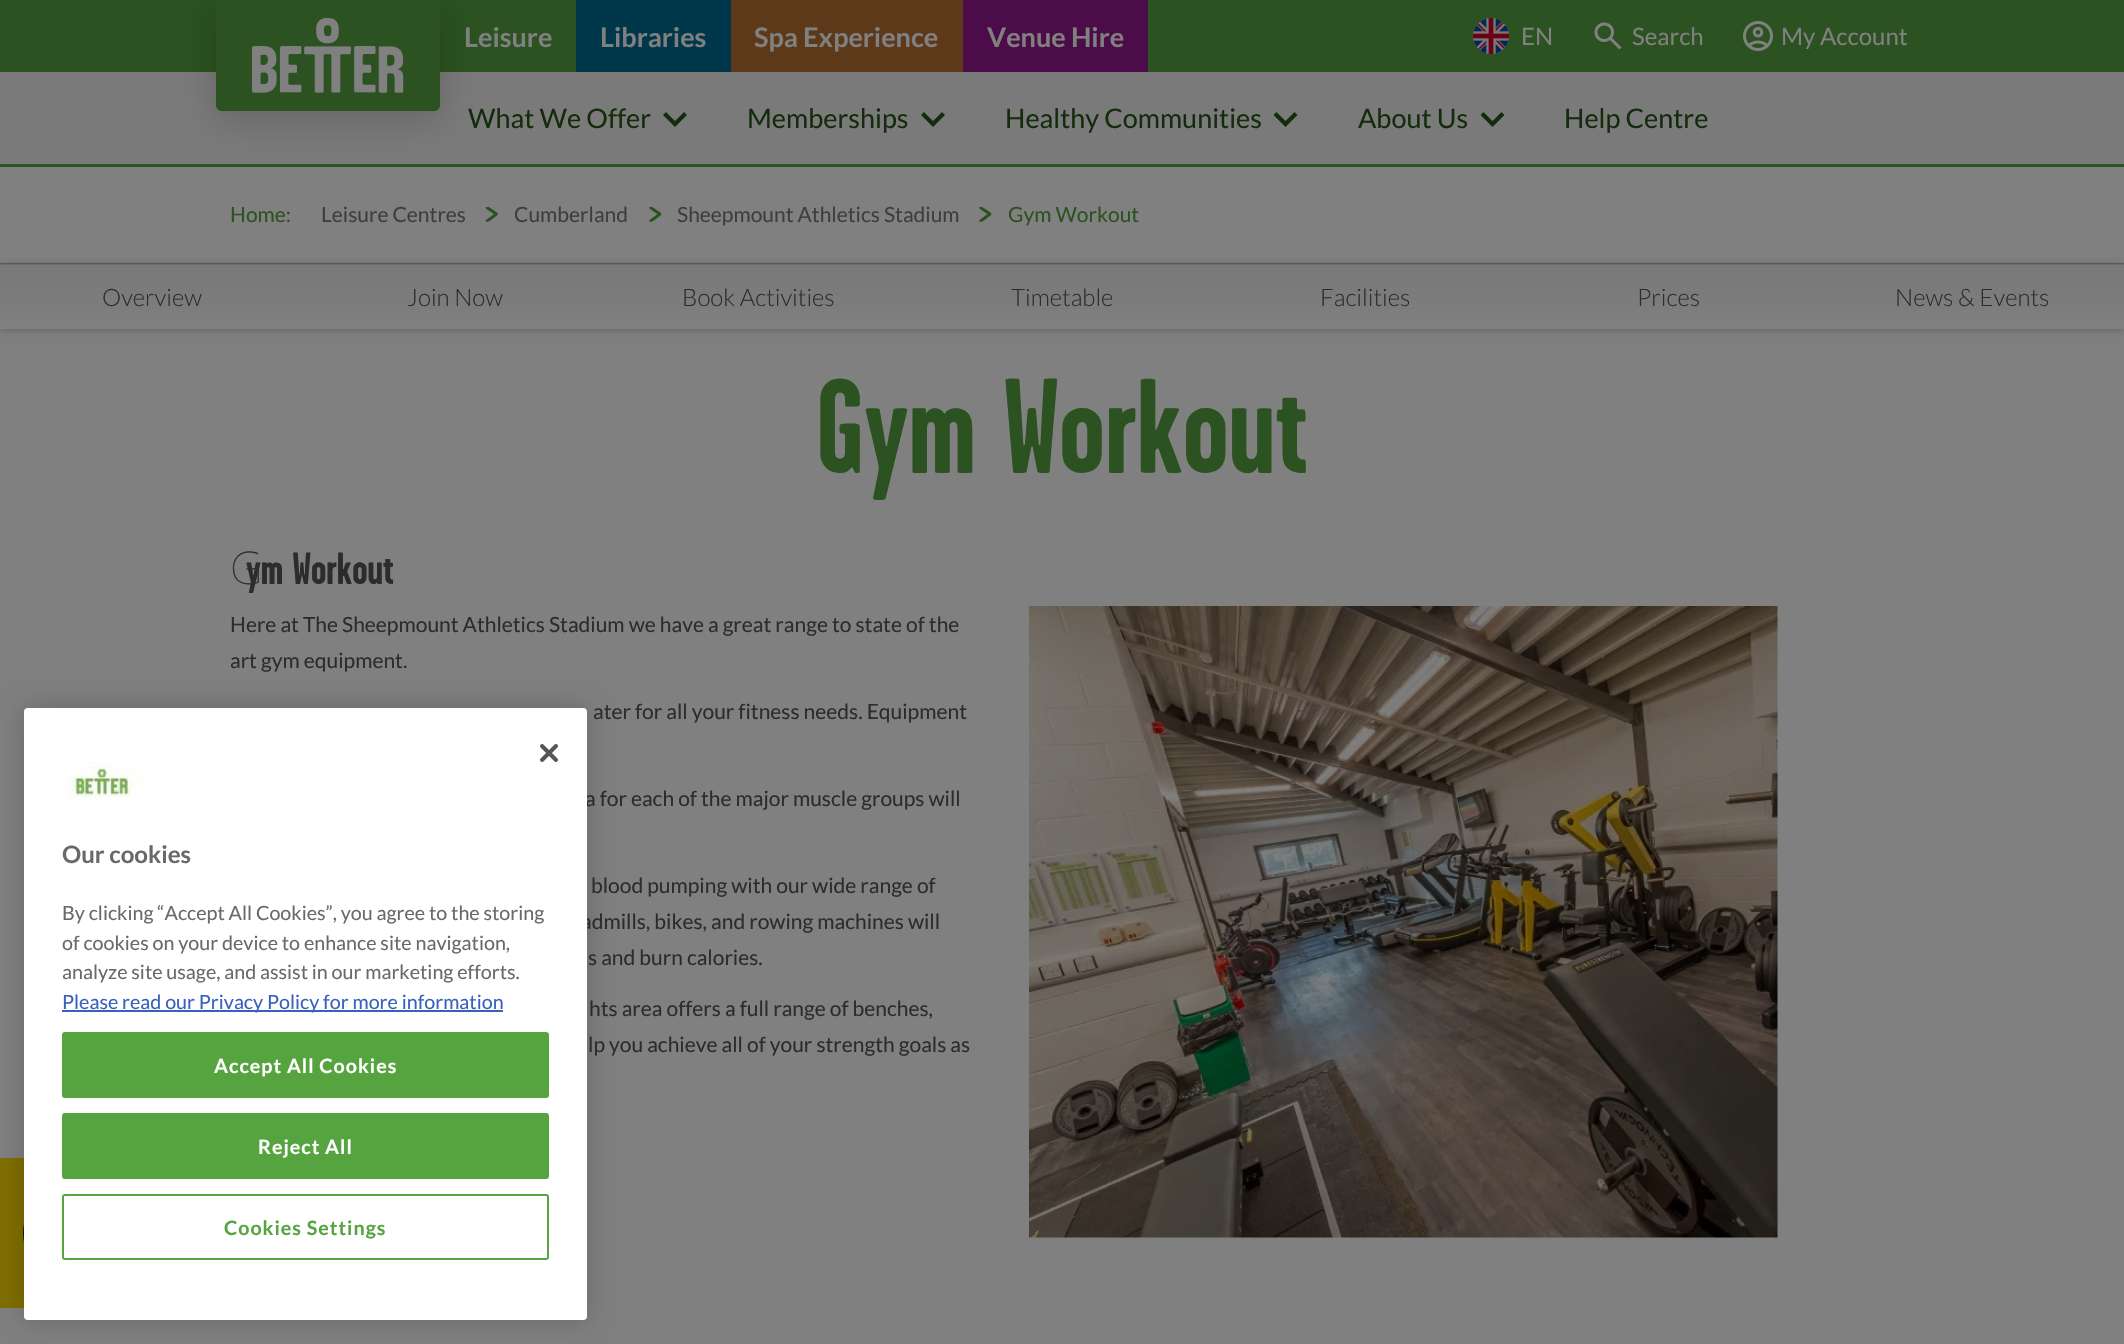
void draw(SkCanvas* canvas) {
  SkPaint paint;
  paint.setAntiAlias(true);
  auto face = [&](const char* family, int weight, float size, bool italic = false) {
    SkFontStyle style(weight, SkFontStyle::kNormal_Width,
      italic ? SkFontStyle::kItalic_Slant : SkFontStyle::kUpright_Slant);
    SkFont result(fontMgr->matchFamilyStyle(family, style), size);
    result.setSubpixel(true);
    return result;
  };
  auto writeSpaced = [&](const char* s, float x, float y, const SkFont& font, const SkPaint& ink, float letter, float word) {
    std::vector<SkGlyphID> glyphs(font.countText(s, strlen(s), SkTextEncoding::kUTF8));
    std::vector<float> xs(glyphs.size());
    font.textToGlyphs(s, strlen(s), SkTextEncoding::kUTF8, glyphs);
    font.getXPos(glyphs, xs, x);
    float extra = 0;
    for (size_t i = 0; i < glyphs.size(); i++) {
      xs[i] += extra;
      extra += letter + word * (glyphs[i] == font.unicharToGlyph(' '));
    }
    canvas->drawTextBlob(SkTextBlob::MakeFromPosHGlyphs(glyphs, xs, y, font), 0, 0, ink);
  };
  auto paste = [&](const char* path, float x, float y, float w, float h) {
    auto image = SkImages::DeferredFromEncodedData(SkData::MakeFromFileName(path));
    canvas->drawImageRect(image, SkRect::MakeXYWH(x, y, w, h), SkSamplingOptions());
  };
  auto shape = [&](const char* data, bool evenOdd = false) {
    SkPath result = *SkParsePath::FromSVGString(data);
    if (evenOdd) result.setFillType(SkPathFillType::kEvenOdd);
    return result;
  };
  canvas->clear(0xff808080);
  {
    const struct { float x, y, w, h; SkColor color; } items[] = {
      {0, 0, 2124, 72, 0xff2b5220},
      {0, 72, 2124, 92, 0xff7a7a7a},
      {0, 164, 2124, 3, 0xff2b5220},
    };
    for (auto [x, y, w, h, color] : items) {
      paint.setColor(color);
      canvas->drawRect(SkRect::MakeXYWH(x, y, w, h), paint);
    }
  }
  paint.setColor(0x2e000000);
  paint.setMaskFilter(SkMaskFilter::MakeBlur(kNormal_SkBlurStyle, 19));
  canvas->drawRoundRect(SkRect::MakeXYWH(216, 8, 224, 111), 6, 6, paint);
  paint.setMaskFilter(nullptr);
  paint.setColor(0xff2b5220);
  canvas->drawPath(shape("M216 0H440V105C440 108.5 437.5 111 434 111H222C218.5 111 216 108.5 216 105Z"), paint);
  paste("img/1.png", 252, 18, 152, 75);
  {
    const struct { float x, y, w, h; SkColor color; } items[] = {
      {576, 0, 155, 72, 0xff00374b},
      {731, 0, 232, 72, 0xff5d3919},
      {963, 0, 185, 72, 0xff4b0c49},
    };
    for (auto [x, y, w, h, color] : items) {
      paint.setColor(color);
      canvas->drawRect(SkRect::MakeXYWH(x, y, w, h), paint);
    }
  }
  paste("img/2.png", 1473, 18, 36, 36);
  paste("img/3.png", 1594, 22, 28, 28);
  paste("img/4.png", 1743, 21, 30, 30);
  paint.setColor(0xff132d0c);
  canvas->drawPath(shape("M675 127L663 115L666 112L675 121L684 112L687 115Z"), paint);
  canvas->drawPath(shape("M933 127L921 115L924 112L933 121L942 112L945 115Z"), paint);
  canvas->drawPath(shape("M1285.5 127L1273.5 115L1276.5 112L1285.5 121L1294.5 112L1297.5 115Z"), paint);
  canvas->drawPath(shape("M1492.5 127L1480.5 115L1483.5 112L1492.5 121L1501.5 112L1504.5 115Z"), paint);
  paint.setColor(0xff5d5d5d);
  canvas->drawRect(SkRect::MakeXYWH(0, 263, 2124, 2), paint);
  paste("img/5.png", 485, 207, 13, 15);
  paste("img/6.png", 649, 207, 13, 15);
  paste("img/7.png", 979, 207, 13, 15);
  canvas->save();
  canvas->clipPath(shape("M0 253H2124V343H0ZM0 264H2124V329H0Z", true), true);
  paint.setColor(0x3d000000);
  paint.setMaskFilter(SkMaskFilter::MakeBlur(kNormal_SkBlurStyle, 4));
  canvas->drawRect(SkRect::MakeXYWH(0, 266, 2124, 64), paint);
  paint.setMaskFilter(nullptr);
  canvas->restore();
  {
    const SkColor colors[] = {0xff808080, 0x99757475};
    const float stops[] = {0, 1};
    const SkPoint ends[] = {{1062, 329}, {1062, 264}};
    paint.setShader(SkGradientShader::MakeLinear(ends, colors, stops, 2, SkTileMode::kClamp));
    paint.setAlpha(255);
  }
  canvas->drawRect(SkRect::MakeXYWH(0, 264, 2124, 65), paint);
  paste("img/8.png", 1029, 606, 749, 632);
  paint.setShader(nullptr);
  paint.setColor(0xff806e00);
  canvas->drawRect(SkRect::MakeXYWH(0, 1158, 24, 150), paint);
  paste("img/9.png", 23, 1224, 1, 18);
  paint.setColor(0x33000000);
  paint.setMaskFilter(SkMaskFilter::MakeBlur(kNormal_SkBlurStyle, 13.5f));
  canvas->drawRoundRect(SkRect::MakeXYWH(24, 708, 563, 612), 4, 4, paint);
  paint.setMaskFilter(nullptr);
  auto f0 = face("Lato", 700, 27);
  paint.setColor(0xff808080);
  {
    const struct { const char* s; float x, y; } items[] = {
      {"Leisure", 464, 47},
      {"Libraries", 600, 47},
      {"Spa Experience", 754, 47},
      {"Venue Hire", 987, 47},
    };
    for (auto [s, x, y] : items) {
      canvas->drawString(s, x, y, f0, paint);
    }
  }
  auto f1 = face("Lato", 400, 24);
  {
    const struct { const char* s; float x, y; } items[] = {
      {"EN", 1521, 45},
      {"Search", 1632, 45},
      {"My Account", 1781, 45},
    };
    for (auto [s, x, y] : items) {
      canvas->drawString(s, x, y, f1, paint);
    }
  }
  auto f2 = face("Lato", 400, 27);
  paint.setColor(0xff132d0c);
  {
    const struct { const char* s; float x, y; } items[] = {
      {"What We Offer", 468, 128},
      {"Memberships", 747, 128},
      {"Healthy Communities", 1005, 128},
      {"About Us", 1358, 128},
      {"Help Centre", 1564, 128},
    };
    for (auto [s, x, y] : items) {
      canvas->drawString(s, x, y, f2, paint);
    }
  }
  auto f3 = face("Lato", 400, 21);
  paint.setColor(0xff2b5220);
  canvas->drawString("Home:", 230, 222, f3, paint);
  paint.setColor(0xff3e3e3e);
  {
    const struct { const char* s; float x, y; } items[] = {
      {"Leisure Centres", 321, 222},
      {"Cumberland", 514, 222},
      {"Sheepmount Athletics Stadium", 677, 222},
    };
    for (auto [s, x, y] : items) {
      canvas->drawString(s, x, y, f3, paint);
    }
  }
  paint.setColor(0xff2b5220);
  canvas->drawString("Gym Workout", 1008, 222, f3, paint);
  auto f4 = face("Lato", 300, 24);
  paint.setColor(0xff2c2c2c);
  {
    const struct { const char* s; float x, y; } items[] = {
      {"Overview", 102, 306},
      {"Join Now", 407, 306},
      {"Book Activities", 682, 306},
      {"Timetable", 1011, 306},
      {"Facilities", 1320, 306},
      {"Prices", 1637, 306},
      {"News & Events", 1895, 306},
    };
    for (auto [s, x, y] : items) {
      canvas->drawString(s, x, y, f4, paint);
    }
  }
  auto f5 = face("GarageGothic", 700, 135);
  paint.setColor(0xff2b5220);
  canvas->drawString("Gym Workout", 816, 473, f5, paint);
  auto f6 = face("Noto Sans", 100, 45);
  paint.setColor(0xff2c2c2c);
  canvas->drawString("G", 230, 584, f6, paint);
  auto f7 = face("GarageGothic", 700, 45);
  canvas->drawString("ym Workout", 246, 584, f7, paint);
  {
    const struct { const char* s; float x, y; } items[] = {
      {"Here at The Sheepmount Athletics Stadium we have a great range to state of the", 230, 632},
      {"art gym equipment.", 230, 668},
      {"ater for all your fitness needs. Equipment", 593, 719},
      {"a for each of the major muscle groups will", 585, 806},
      {"blood pumping with our wide range of", 591, 893},
      {"admills, bikes, and rowing machines will", 581, 929},
      {"s and burn calories.", 588, 965},
      {"hts area offers a full range of benches,", 589, 1016},
      {"lp you achieve all of your strength goals as", 588, 1052},
    };
    for (auto [s, x, y] : items) {
      canvas->drawString(s, x, y, f3, paint);
    }
  }
  paint.setColor(0xffffffff);
  canvas->drawRoundRect(SkRect::MakeXYWH(24, 708, 563, 612), 4, 4, paint);
  paste("img/10.png", 540, 744, 18, 18);
  paste("img/11.png", 66, 762, 79, 48);
  auto f8 = face("Lato", 700, 24);
  paint.setColor(0xff696969);
  canvas->drawString("Our cookies", 62, 863, f8, paint);
  auto f9 = face("Lato", 400, 19.7f);
  {
    const struct { const char* s; float x, y; } items[] = {
      {"By clicking “Accept All Cookies”, you agree to the storing", 62, 920},
      {"of cookies on your device to enhance site navigation,", 62, 950},
      {"analyze site usage, and assist in our marketing efforts.", 62, 979},
    };
    for (auto [s, x, y] : items) {
      canvas->drawString(s, x, y, f9, paint);
    }
  }
  paint.setColor(0xff3860be);
  canvas->drawRect(SkRect::MakeXYWH(62, 1010, 441, 2), paint);
  canvas->drawString("Please read our Privacy Policy for more information", 62, 1009, f9, paint);
  paint.setColor(0xff56a43f);
  canvas->drawRoundRect(SkRect::MakeXYWH(63, 1033, 485, 64), 2, 2, paint);
  paint.setStroke(true);
  paint.setStrokeWidth(2);
  canvas->drawRoundRect(SkRect::MakeXYWH(63, 1033, 485, 64), 2, 2, paint);
  auto f10 = face("Lato", 700, 19.7f);
  paint.setStroke(false);
  paint.setColor(0xffffffff);
  writeSpaced("Accept All Cookies", 214, 1073, f10, paint, 1, 0);
  paint.setColor(0xff56a43f);
  canvas->drawRoundRect(SkRect::MakeXYWH(63, 1114, 485, 64), 2, 2, paint);
  paint.setStroke(true);
  canvas->drawRoundRect(SkRect::MakeXYWH(63, 1114, 485, 64), 2, 2, paint);
  paint.setStroke(false);
  paint.setColor(0xffffffff);
  writeSpaced("Reject All", 258, 1154, f10, paint, 1, 0);
  paint.setStroke(true);
  paint.setColor(0xff56a43f);
  canvas->drawRoundRect(SkRect::MakeXYWH(63, 1195, 485, 64), 2, 2, paint);
  paint.setStroke(false);
  writeSpaced("Cookies Settings", 224, 1235, f10, paint, 1, 0);
}
